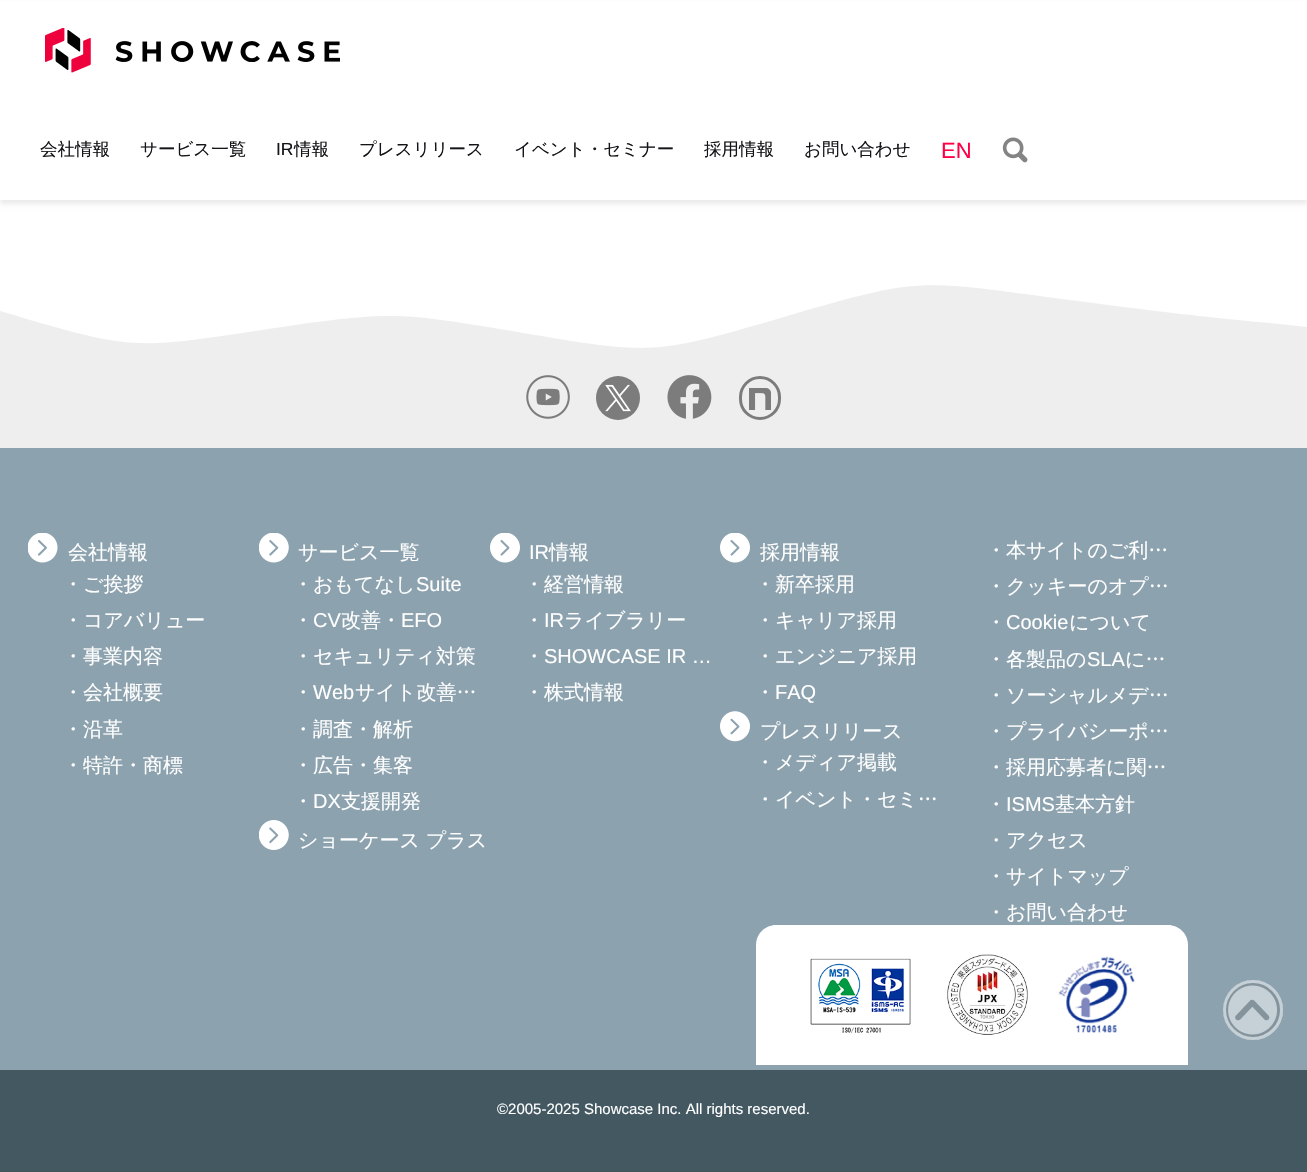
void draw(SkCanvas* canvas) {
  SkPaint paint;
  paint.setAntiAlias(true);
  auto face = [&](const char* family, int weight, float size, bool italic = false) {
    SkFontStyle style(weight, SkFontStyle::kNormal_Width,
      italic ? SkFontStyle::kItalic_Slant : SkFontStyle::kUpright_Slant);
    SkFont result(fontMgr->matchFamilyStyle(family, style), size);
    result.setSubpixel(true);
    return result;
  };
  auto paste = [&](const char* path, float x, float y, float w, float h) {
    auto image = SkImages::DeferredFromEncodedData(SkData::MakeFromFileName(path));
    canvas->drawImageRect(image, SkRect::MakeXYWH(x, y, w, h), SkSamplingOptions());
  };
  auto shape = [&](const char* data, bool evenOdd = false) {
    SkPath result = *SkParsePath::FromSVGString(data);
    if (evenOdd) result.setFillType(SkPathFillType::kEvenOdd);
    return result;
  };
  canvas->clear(0xffffffff);
  paint.setColor(0x14000000);
  paint.setMaskFilter(SkMaskFilter::MakeBlur(kNormal_SkBlurStyle, 2.5f));
  canvas->drawRect(SkRect::MakeXYWH(0, 4, 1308, 200), paint);
  paint.setMaskFilter(nullptr);
  paint.setColor(0xffffffff);
  canvas->drawRect(SkRect::MakeXYWH(0, 1, 1307, 199), paint);
  paste("img/1.png", 45, 28, 295, 45);
  paste("img/2.png", 1002, 137, 26, 26);
  paint.setColor(0xffeeeeee);
  canvas->drawPath(shape("M0 311C131 350 131 350 262 330C392 311 392 311 523 333C654 355 654 355 784 317C915 279 915 279 1046 297C1177 314 1177 314 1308 327V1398H0Z"), paint);
  paste("img/3.png", 526, 375, 44, 44);
  paint.setColor(0xff7c7c7c);
  canvas->drawCircle(618, 398, 22, paint);
  paste("img/4.png", 605, 384, 26, 28);
  paste("img/5.png", 667, 375, 45, 44);
  paint.setStroke(true);
  paint.setStrokeWidth(3);
  canvas->drawRoundRect(SkRect::MakeXYWH(740.5f, 377.5f, 39, 41), 19.5f, 19.5f, paint);
  paste("img/6.png", 749, 388, 22, 22);
  paint.setStroke(false);
  paint.setColor(0xff8ca2ae);
  canvas->drawRect(SkRect::MakeXYWH(0, 448, 1307, 622), paint);
  paste("img/7.png", 28, 533, 30, 30);
  paste("img/8.png", 259, 533, 30, 30);
  paste("img/9.png", 259, 820, 30, 30);
  paste("img/10.png", 490, 533, 30, 30);
  paste("img/10.png", 720, 533, 30, 30);
  paste("img/11.png", 720, 711, 30, 31);
  paint.setColor(0xffffffff);
  canvas->drawPath(shape("M776 925H1168C1179 925 1188 934 1188 945V1065H756V945C756 934 765 925 776 925Z"), paint);
  paste("img/12.png", 810, 958, 101, 76);
  paste("img/13.png", 947, 954, 81, 81);
  paste("img/14.png", 1058, 956, 77, 77);
  paint.setColor(0xffc6d1d7);
  canvas->drawCircle(1253, 1010, 30, paint);
  paste("img/15.png", 1223, 980, 60, 60);
  paint.setStroke(true);
  canvas->drawCircle(1253, 1010, 28.5f, paint);
  paint.setStroke(false);
  paint.setColor(0xff445862);
  canvas->drawRect(SkRect::MakeXYWH(0, 1070, 1307, 102), paint);
  auto f0 = face("WenQuanYi Zen Hei", 500, 17.5f);
  paint.setColor(0xff141317);
  canvas->drawString("会社情報", 40, 155, f0, paint);
  canvas->drawString("サービス一覧", 140, 155, f0, paint);
  auto f1 = face("Liberation Sans", 400, 17.5f);
  canvas->drawString("IR", 276, 155, f1, paint);
  {
    const struct { const char* s; float x, y; } items[] = {
      {"情報", 294, 155},
      {"プレスリリース", 359, 155},
      {"イベント・セミナー", 514, 155},
      {"採用情報", 704, 155},
      {"お問い合わせ", 804, 155},
    };
    for (auto [s, x, y] : items) {
      canvas->drawString(s, x, y, f0, paint);
    }
  }
  auto f2 = face("Liberation Sans", 400, 22);
  paint.setColor(0xffff0047);
  canvas->drawString("EN", 941, 158, f2, paint);
  auto f3 = face("WenQuanYi Zen Hei", 500, 20);
  paint.setColor(0xffffffff);
  {
    const struct { const char* s; float x, y; } items[] = {
      {"会社情報", 68, 559},
      {"・ご挨拶", 63, 591},
      {"・コアバリュー", 63, 627},
      {"・事業内容", 63, 663},
      {"・会社概要", 63, 699},
      {"・沿革", 63, 736},
      {"・特許・商標", 63, 772},
      {"サービス一覧", 298, 559},
      {"・おもてなし", 293, 591},
    };
    for (auto [s, x, y] : items) {
      canvas->drawString(s, x, y, f3, paint);
    }
  }
  auto f4 = face("Liberation Sans", 400, 20);
  canvas->drawString("Suite", 416, 591, f4, paint);
  canvas->drawString("・", 293, 627, f3, paint);
  canvas->drawString("CV", 313, 627, f4, paint);
  canvas->drawString("改善・", 341, 627, f3, paint);
  canvas->drawString("EFO", 401, 627, f4, paint);
  canvas->drawString("・セキュリティ対策", 293, 663, f3, paint);
  canvas->drawString("・", 293, 699, f3, paint);
  canvas->drawString("Web", 313, 699, f4, paint);
  {
    const struct { const char* s; float x, y; } items[] = {
      {"サイト改善…", 355, 699},
      {"・調査・解析", 293, 736},
      {"・広告・集客", 293, 772},
      {"・", 293, 808},
    };
    for (auto [s, x, y] : items) {
      canvas->drawString(s, x, y, f3, paint);
    }
  }
  canvas->drawString("DX", 313, 808, f4, paint);
  canvas->drawString("支援開発", 341, 808, f3, paint);
  canvas->drawString("ショーケース プラス", 298, 847, f3, paint);
  canvas->drawString("IR", 529, 559, f4, paint);
  {
    const struct { const char* s; float x, y; } items[] = {
      {"情報", 549, 559},
      {"・経営情報", 524, 591},
      {"・", 524, 627},
    };
    for (auto [s, x, y] : items) {
      canvas->drawString(s, x, y, f3, paint);
    }
  }
  canvas->drawString("IR", 544, 627, f4, paint);
  canvas->drawString("ライブラリー", 564, 627, f3, paint);
  canvas->drawString("・", 524, 663, f3, paint);
  canvas->drawString("SHOWCASE IR …", 544, 663, f4, paint);
  {
    const struct { const char* s; float x, y; } items[] = {
      {"・株式情報", 524, 699},
      {"採用情報", 760, 559},
      {"・新卒採用", 755, 591},
      {"・キャリア採用", 755, 627},
      {"・エンジニア採用", 755, 663},
      {"・", 755, 699},
    };
    for (auto [s, x, y] : items) {
      canvas->drawString(s, x, y, f3, paint);
    }
  }
  canvas->drawString("FAQ", 775, 699, f4, paint);
  {
    const struct { const char* s; float x, y; } items[] = {
      {"プレスリリース", 760, 738},
      {"・メディア掲載", 755, 769},
      {"・イベント・セミ…", 755, 806},
      {"・本サイトのご利…", 986, 557},
      {"・クッキーのオプ…", 986, 593},
      {"・", 986, 629},
    };
    for (auto [s, x, y] : items) {
      canvas->drawString(s, x, y, f3, paint);
    }
  }
  canvas->drawString("Cookie", 1006, 629, f4, paint);
  canvas->drawString("について", 1069, 629, f3, paint);
  canvas->drawString("・各製品の", 986, 666, f3, paint);
  canvas->drawString("SLA", 1087, 666, f4, paint);
  {
    const struct { const char* s; float x, y; } items[] = {
      {"に…", 1125, 666},
      {"・ソーシャルメデ…", 986, 702},
      {"・プライバシーポ…", 986, 738},
      {"・採用応募者に関…", 986, 774},
      {"・", 986, 811},
    };
    for (auto [s, x, y] : items) {
      canvas->drawString(s, x, y, f3, paint);
    }
  }
  canvas->drawString("ISMS", 1006, 811, f4, paint);
  {
    const struct { const char* s; float x, y; } items[] = {
      {"基本方針", 1055, 811},
      {"・アクセス", 986, 847},
      {"・サイトマップ", 986, 883},
      {"・お問い合わせ", 986, 919},
    };
    for (auto [s, x, y] : items) {
      canvas->drawString(s, x, y, f3, paint);
    }
  }
  auto f5 = face("Liberation Sans", 400, 15);
  canvas->drawString("©2005-2025 Showcase Inc. All rights reserved.", 497, 1114, f5, paint);
}
